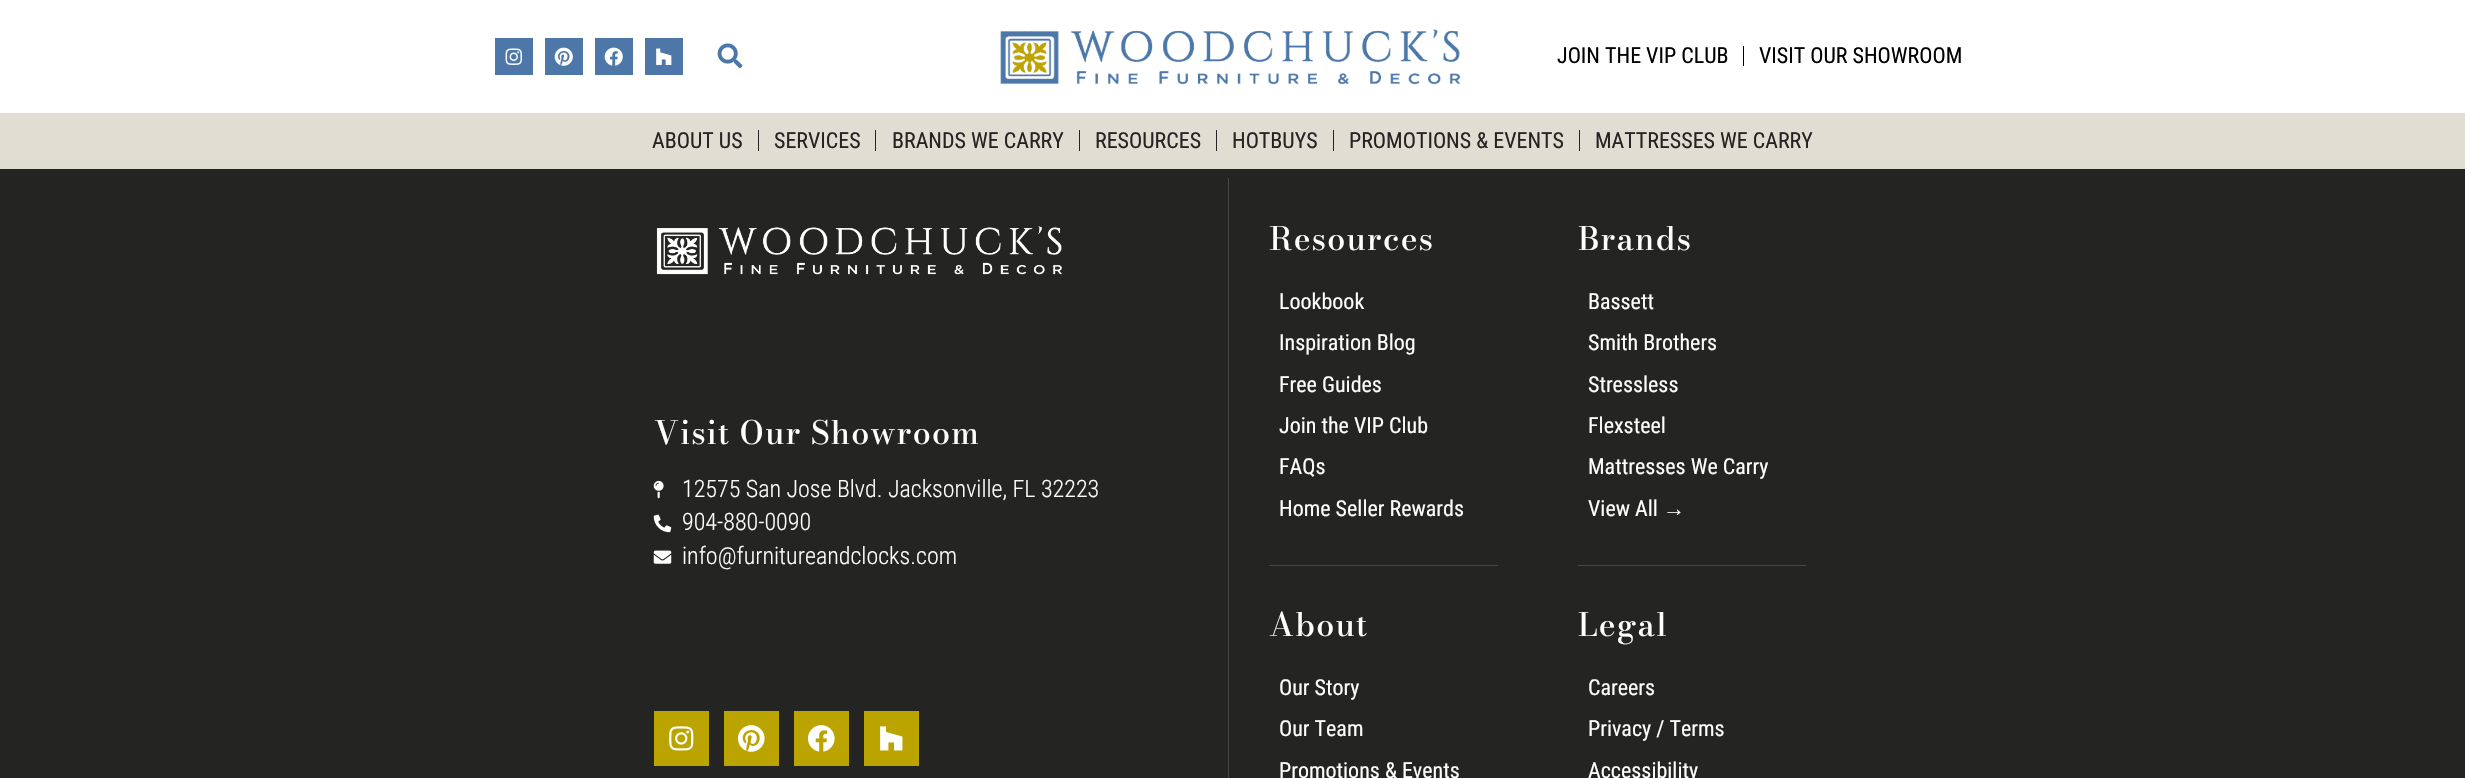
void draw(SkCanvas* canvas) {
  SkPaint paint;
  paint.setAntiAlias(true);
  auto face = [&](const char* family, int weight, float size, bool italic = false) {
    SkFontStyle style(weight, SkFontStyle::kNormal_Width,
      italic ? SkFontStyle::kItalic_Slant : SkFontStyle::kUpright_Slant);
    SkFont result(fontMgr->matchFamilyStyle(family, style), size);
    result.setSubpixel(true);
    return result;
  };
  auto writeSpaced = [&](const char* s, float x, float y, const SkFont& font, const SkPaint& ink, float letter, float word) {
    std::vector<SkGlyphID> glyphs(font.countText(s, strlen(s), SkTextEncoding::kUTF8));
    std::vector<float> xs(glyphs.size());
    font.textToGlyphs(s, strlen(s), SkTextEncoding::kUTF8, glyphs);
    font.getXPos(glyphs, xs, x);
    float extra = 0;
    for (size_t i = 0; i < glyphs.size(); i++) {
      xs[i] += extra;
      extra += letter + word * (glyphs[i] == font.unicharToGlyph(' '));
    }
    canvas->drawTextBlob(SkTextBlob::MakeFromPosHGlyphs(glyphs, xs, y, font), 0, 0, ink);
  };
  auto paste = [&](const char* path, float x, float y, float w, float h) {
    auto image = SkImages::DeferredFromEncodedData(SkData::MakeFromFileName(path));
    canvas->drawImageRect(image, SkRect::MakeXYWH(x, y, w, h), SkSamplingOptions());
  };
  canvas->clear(0xff242423);
  paint.setColor(0xffffffff);
  canvas->drawRect(SkRect::MakeXYWH(0, 0, 2465, 113), paint);
  paint.setColor(0xff4c77a8);
  canvas->drawRect(SkRect::MakeXYWH(495, 38, 38, 37), paint);
  paste("img/1.png", 505, 48, 17, 17);
  canvas->drawRect(SkRect::MakeXYWH(545, 38, 38, 37), paint);
  paste("img/2.png", 554, 47, 19, 19);
  canvas->drawRect(SkRect::MakeXYWH(595, 38, 38, 37), paint);
  paste("img/3.png", 604, 47, 19, 19);
  canvas->drawRect(SkRect::MakeXYWH(645, 38, 38, 37), paint);
  paste("img/4.png", 656, 48, 16, 17);
  paste("img/5.png", 717, 43, 26, 26);
  paste("img/6.png", 1000, 29, 461, 56);
  {
    const struct { float x, y, w, h; SkColor color; } items[] = {
      {1743, 46, 1, 20, 0xff000000},
      {0, 113, 2465, 56, 0xffe0ddd3},
      {758, 130, 1, 21, 0xff242423},
      {875, 130, 1, 21, 0xff242423},
      {1079, 130, 1, 21, 0xff242423},
      {1216, 130, 1, 21, 0xff242423},
      {1333, 130, 1, 21, 0xff242423},
      {1579, 130, 1, 21, 0xff242423},
      {1228, 178, 1, 600, 0xff474746},
    };
    for (auto [x, y, w, h, color] : items) {
      paint.setColor(color);
      canvas->drawRect(SkRect::MakeXYWH(x, y, w, h), paint);
    }
  }
  paste("img/7.png", 656, 226, 406, 49);
  paste("img/8.png", 653, 480, 11, 19);
  paste("img/9.png", 653, 514, 19, 19);
  paste("img/10.png", 653, 550, 19, 14);
  paint.setColor(0xffbca400);
  canvas->drawRect(SkRect::MakeXYWH(654, 711, 55, 55), paint);
  paste("img/11.png", 669, 726, 25, 25);
  canvas->drawRect(SkRect::MakeXYWH(724, 711, 55, 55), paint);
  paste("img/12.png", 737, 725, 28, 27);
  canvas->drawRect(SkRect::MakeXYWH(794, 711, 55, 55), paint);
  paste("img/13.png", 807, 725, 28, 27);
  canvas->drawRect(SkRect::MakeXYWH(864, 711, 55, 55), paint);
  paste("img/14.png", 880, 726, 23, 25);
  paint.setColor(0xff474746);
  canvas->drawRect(SkRect::MakeXYWH(1269, 565, 229, 1), paint);
  canvas->drawRect(SkRect::MakeXYWH(1578, 565, 228, 1), paint);
  auto f0 = face("Roboto Condensed", 400, 22);
  paint.setColor(0xff000000);
  canvas->drawString("JOIN THE VIP CLUB", 1557, 63, f0, paint);
  canvas->drawString("VISIT OUR SHOWROOM", 1759, 63, f0, paint);
  paint.setColor(0xff242423);
  {
    const struct { const char* s; float x, y; } items[] = {
      {"ABOUT US", 652, 148},
      {"SERVICES", 774, 148},
      {"BRANDS WE CARRY", 892, 148},
      {"RESOURCES", 1095, 148},
      {"HOTBUYS", 1232, 148},
      {"PROMOTIONS & EVENTS", 1349, 148},
      {"MATTRESSES WE CARRY", 1595, 148},
    };
    for (auto [s, x, y] : items) {
      canvas->drawString(s, x, y, f0, paint);
    }
  }
  auto f1 = face("Bodoni Moda", 500, 32);
  paint.setColor(0xffffffff);
  writeSpaced("Visit Our Showroom", 654, 444, f1, paint, 1.25f, 0);
  auto f2 = face("Roboto Condensed", 300, 24);
  {
    const struct { const char* s; float x, y; } items[] = {
      {"12575 San Jose Blvd. Jacksonville, FL 32223", 682, 497},
      {"904-880-0090", 682, 530},
      {"info@furnitureandclocks.com", 682, 564},
    };
    for (auto [s, x, y] : items) {
      canvas->drawString(s, x, y, f2, paint);
    }
  }
  writeSpaced("Resources", 1269, 250, f1, paint, 1.25f, 0);
  {
    const struct { const char* s; float x, y; } items[] = {
      {"Lookbook", 1279, 309},
      {"Inspiration Blog", 1279, 350},
      {"Free Guides", 1279, 392},
      {"Join the VIP Club", 1279, 433},
      {"FAQs", 1279, 474},
      {"Home Seller Rewards", 1279, 516},
    };
    for (auto [s, x, y] : items) {
      canvas->drawString(s, x, y, f0, paint);
    }
  }
  writeSpaced("About", 1269, 636, f1, paint, 1.25f, 0);
  {
    const struct { const char* s; float x, y; } items[] = {
      {"Our Story", 1279, 695},
      {"Our Team", 1279, 736},
      {"Promotions & Events", 1279, 778},
    };
    for (auto [s, x, y] : items) {
      canvas->drawString(s, x, y, f0, paint);
    }
  }
  writeSpaced("Brands", 1578, 250, f1, paint, 1.25f, 0);
  {
    const struct { const char* s; float x, y; } items[] = {
      {"Bassett", 1588, 309},
      {"Smith Brothers", 1588, 350},
      {"Stressless", 1588, 392},
      {"Flexsteel", 1588, 433},
      {"Mattresses We Carry", 1588, 474},
      {"View All", 1588, 516},
    };
    for (auto [s, x, y] : items) {
      canvas->drawString(s, x, y, f0, paint);
    }
  }
  auto f3 = face("Liberation Sans", 400, 22);
  canvas->drawString("→", 1663, 516, f3, paint);
  writeSpaced("Legal", 1578, 636, f1, paint, 1.25f, 0);
  {
    const struct { const char* s; float x, y; } items[] = {
      {"Careers", 1588, 695},
      {"Privacy / Terms", 1588, 736},
      {"Accessibility", 1588, 778},
    };
    for (auto [s, x, y] : items) {
      canvas->drawString(s, x, y, f0, paint);
    }
  }
}
